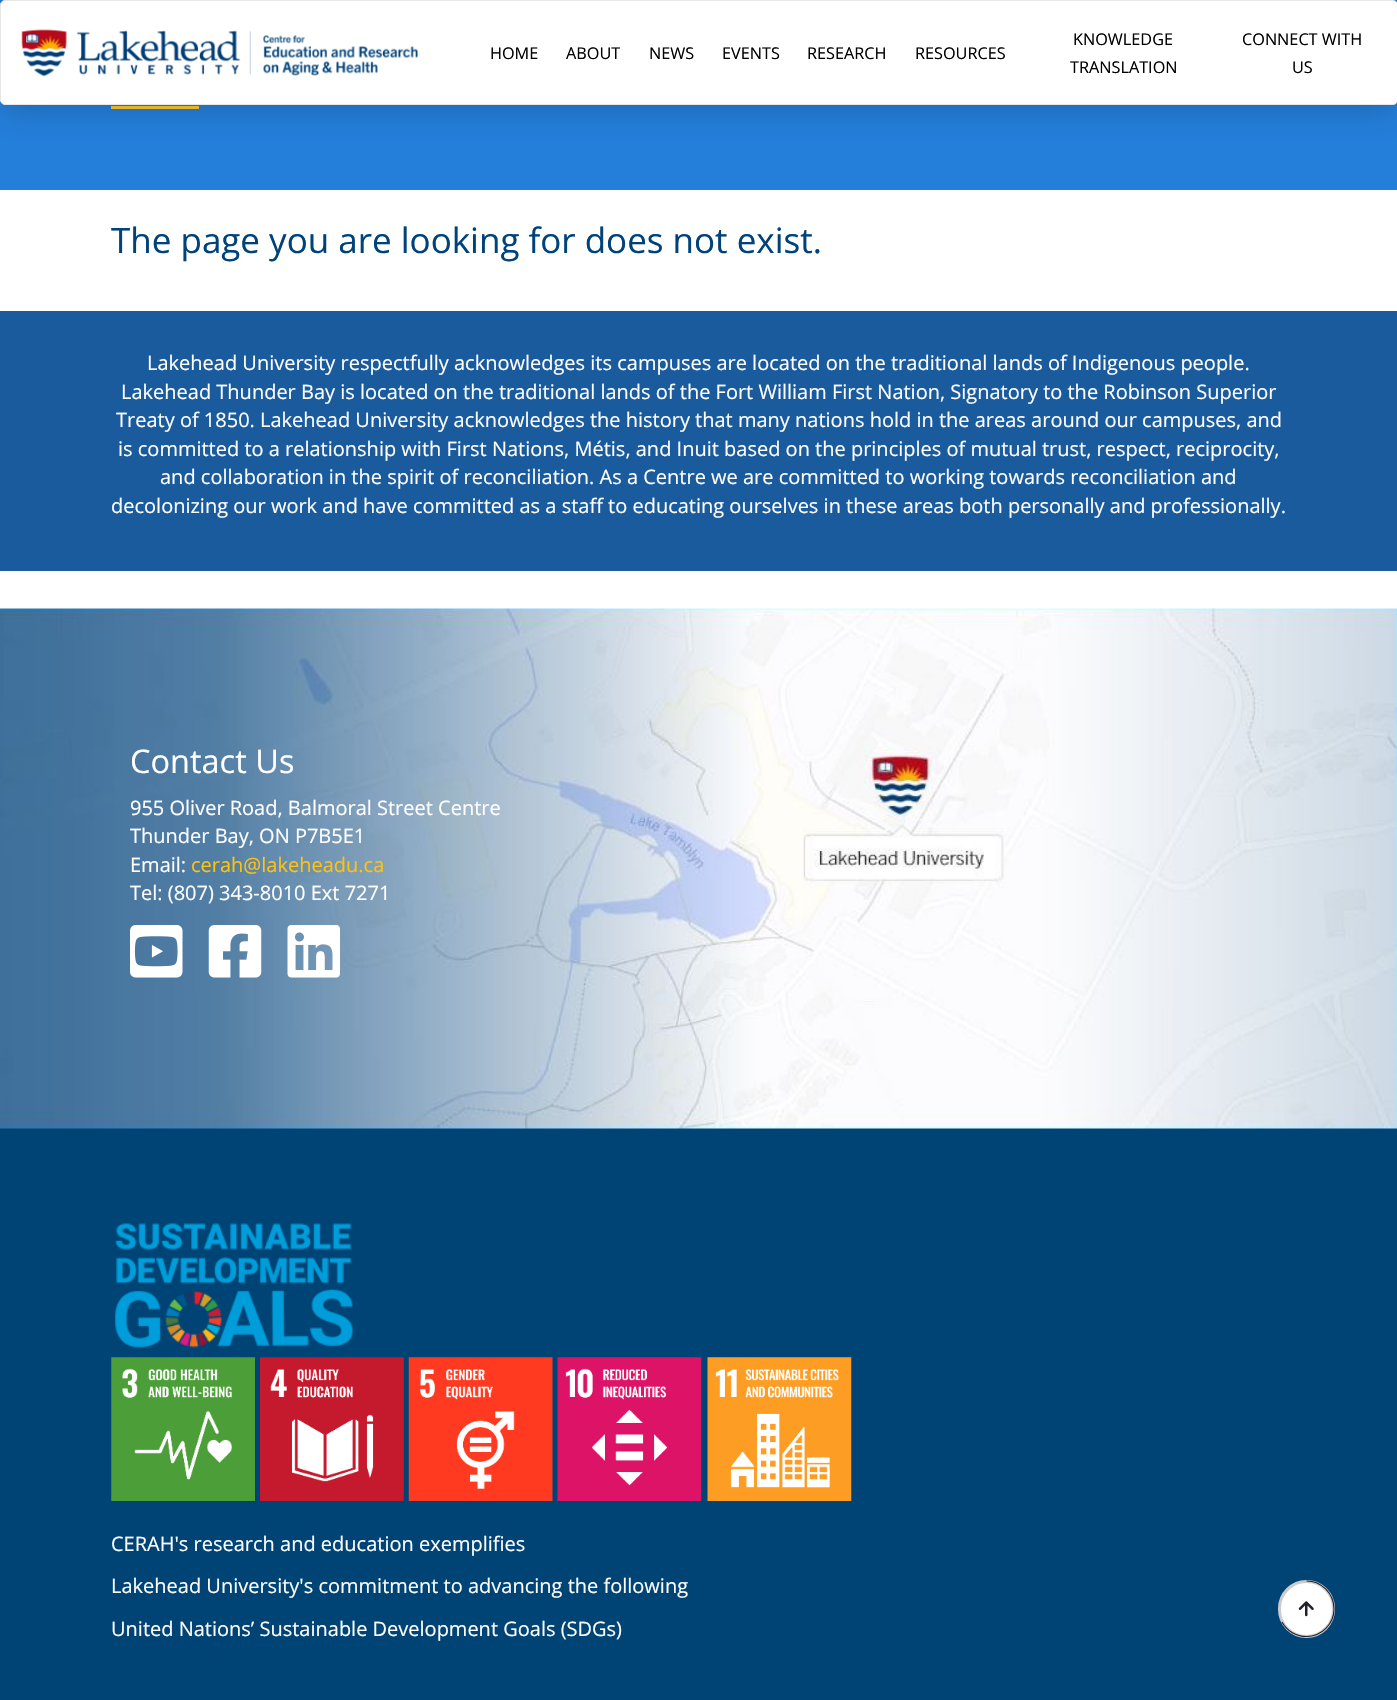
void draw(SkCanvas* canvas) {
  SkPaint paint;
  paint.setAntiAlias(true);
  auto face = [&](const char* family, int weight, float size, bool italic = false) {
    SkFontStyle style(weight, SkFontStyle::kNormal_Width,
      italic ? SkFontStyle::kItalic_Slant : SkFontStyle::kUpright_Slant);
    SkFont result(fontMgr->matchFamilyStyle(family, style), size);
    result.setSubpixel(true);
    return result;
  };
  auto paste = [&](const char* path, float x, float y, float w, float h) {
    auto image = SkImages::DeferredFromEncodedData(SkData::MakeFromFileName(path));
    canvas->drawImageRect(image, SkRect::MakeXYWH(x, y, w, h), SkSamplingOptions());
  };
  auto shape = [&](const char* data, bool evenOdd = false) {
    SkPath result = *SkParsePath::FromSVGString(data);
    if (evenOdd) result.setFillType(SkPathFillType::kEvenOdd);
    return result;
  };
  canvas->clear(0xffffffff);
  paint.setColor(0xff247fdb);
  canvas->drawRect(SkRect::MakeXYWH(0, 0, 1397, 190), paint);
  paint.setColor(0xffffcb33);
  canvas->drawRect(SkRect::MakeXYWH(111, 106, 88, 3), paint);
  paint.setColor(0x40000000);
  paint.setMaskFilter(SkMaskFilter::MakeBlur(kNormal_SkBlurStyle, 19));
  canvas->drawRoundRect(SkRect::MakeXYWH(0, 0, 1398, 105), 5, 5, paint);
  paint.setMaskFilter(nullptr);
  paint.setColor(0xffffffff);
  canvas->drawRoundRect(SkRect::MakeXYWH(0.5f, 0.5f, 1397, 104), 4.5f, 4.5f, paint);
  paint.setStroke(true);
  paint.setStrokeWidth(1);
  paint.setColor(0xffe7e7e7);
  canvas->drawRoundRect(SkRect::MakeXYWH(0.5f, 0.5f, 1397, 104), 4.5f, 4.5f, paint);
  paste("img/1.png", 21, 29, 397, 48);
  paint.setStroke(false);
  paint.setColor(0xff1a5b9d);
  canvas->drawRect(SkRect::MakeXYWH(0, 311, 1397, 260), paint);
  paint.setColor(0xff004475);
  canvas->drawRect(SkRect::MakeXYWH(0, 1128, 1397, 572), paint);
  paste("img/2.png", 0, 608, 1397, 521);
  paste("img/3.png", 130, 925, 53, 53);
  paste("img/4.png", 208, 925, 54, 53);
  paste("img/5.png", 287, 925, 53, 53);
  paste("img/6.png", 114, 1223, 239, 125);
  paste("img/7.png", 111, 1357, 144, 144);
  paste("img/8.png", 260, 1357, 144, 144);
  paste("img/9.png", 408, 1357, 145, 144);
  paste("img/10.png", 557, 1357, 145, 144);
  paste("img/11.png", 707, 1357, 145, 144);
  paint.setColor(0xffffffff);
  canvas->drawRoundRect(SkRect::MakeXYWH(1279.5f, 1581.5f, 54, 55), 27, 27, paint);
  paint.setStroke(true);
  paint.setStrokeWidth(3);
  paint.setColor(0xffcccccc);
  canvas->drawRoundRect(SkRect::MakeXYWH(1279.5f, 1581.5f, 54, 55), 27, 27, paint);
  paint.setStrokeWidth(1.1f);
  paint.setColor(0xff1f2029);
  canvas->drawPath(shape("M1306.5 1581C1321.5 1581 1334 1593.5 1334 1609C1334 1624 1321.5 1636.5 1306.5 1636.5C1296 1636.5 1286.5 1630.5 1282 1622"), paint);
  paste("img/12.png", 1298, 1601, 16, 16);
  auto f0 = face("Open Sans", 400, 16.25f);
  paint.setStroke(false);
  paint.setColor(0xff000000);
  {
    const struct { const char* s; float x, y; } items[] = {
      {"HOME", 490, 59},
      {"ABOUT", 566, 59},
      {"NEWS", 649, 59},
      {"EVENTS", 722, 59},
      {"RESEARCH", 807, 59},
      {"RESOURCES", 915, 59},
      {"KNOWLEDGE", 1073, 45},
      {"TRANSLATION", 1070, 73},
      {"CONNECT WITH", 1242, 45},
      {"US", 1292, 73},
    };
    for (auto [s, x, y] : items) {
      canvas->drawString(s, x, y, f0, paint);
    }
  }
  auto f1 = face("Open Sans", 400, 35);
  paint.setColor(0xff00427a);
  canvas->drawString("The page you are looking for does not exist.", 111, 253, f1, paint);
  auto f2 = face("Open Sans", 400, 20);
  paint.setColor(0xffffffff);
  {
    const struct { const char* s; float x, y; } items[] = {
      {"Lakehead University respectfully acknowledges its campuses are located on the traditional lands of Indigenous people.", 147, 370},
      {"Lakehead Thunder Bay is located on the traditional lands of the Fort William First Nation, Signatory to the Robinson Superior", 121, 399},
      {"Treaty of 1850. Lakehead University acknowledges the history that many nations hold in the areas around our campuses, and", 116, 427},
      {"is committed to a relationship with First Nations, Métis, and Inuit based on the principles of mutual trust, respect, reciprocity,", 118, 456},
      {"and collaboration in the spirit of reconciliation. As a Centre we are committed to working towards reconciliation and", 160, 484},
      {"decolonizing our work and have committed as a staff to educating ourselves in these areas both personally and professionally.", 111, 513},
    };
    for (auto [s, x, y] : items) {
      canvas->drawString(s, x, y, f2, paint);
    }
  }
  auto f3 = face("Open Sans", 400, 32.5f);
  canvas->drawString("Contact Us", 130, 773, f3, paint);
  {
    const struct { const char* s; float x, y; } items[] = {
      {"955 Oliver Road, Balmoral Street Centre", 130, 815},
      {"Thunder Bay, ON P7B5E1", 130, 843},
      {"Email:", 130, 872},
    };
    for (auto [s, x, y] : items) {
      canvas->drawString(s, x, y, f2, paint);
    }
  }
  paint.setColor(0xffffc20e);
  canvas->drawString("cerah@lakeheadu.ca", 191, 872, f2, paint);
  paint.setColor(0xffffffff);
  {
    const struct { const char* s; float x, y; } items[] = {
      {"Tel: (807) 343-8010 Ext 7271", 130, 900},
      {"CERAH's research and education exemplifies", 111, 1551},
      {"Lakehead University's commitment to advancing the following", 111, 1593},
      {"United Nations’ Sustainable Development Goals (SDGs)", 111, 1636},
    };
    for (auto [s, x, y] : items) {
      canvas->drawString(s, x, y, f2, paint);
    }
  }
}
